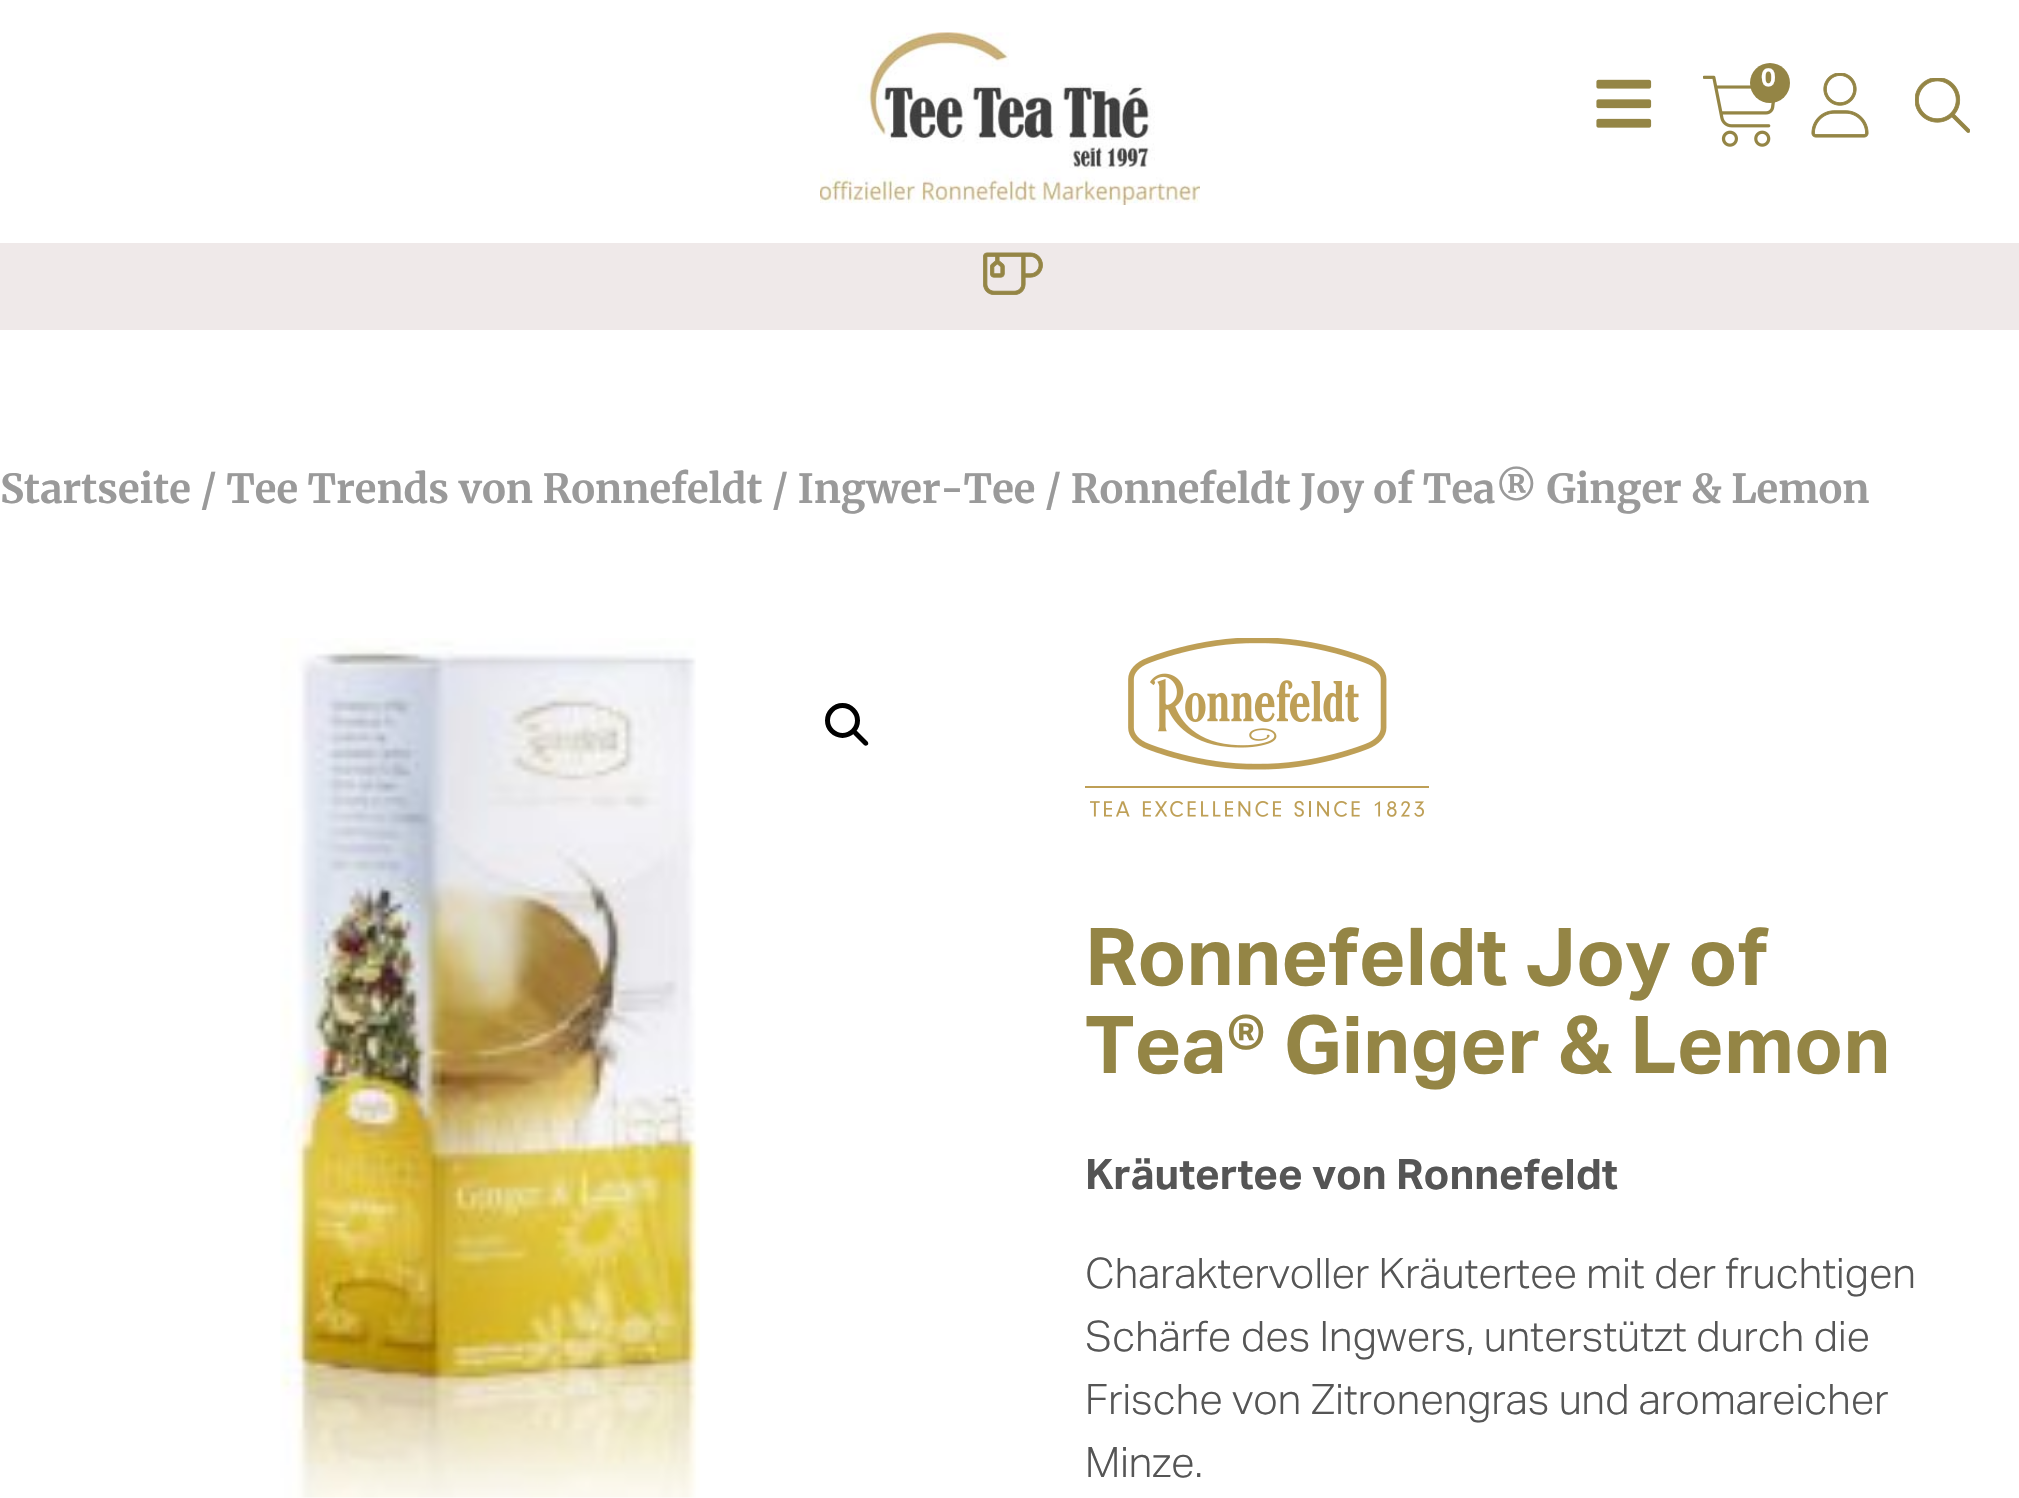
void draw(SkCanvas* canvas) {
  SkPaint paint;
  paint.setAntiAlias(true);
  auto face = [&](const char* family, int weight, float size, bool italic = false) {
    SkFontStyle style(weight, SkFontStyle::kNormal_Width,
      italic ? SkFontStyle::kItalic_Slant : SkFontStyle::kUpright_Slant);
    SkFont result(fontMgr->matchFamilyStyle(family, style), size);
    result.setSubpixel(true);
    return result;
  };
  auto paste = [&](const char* path, float x, float y, float w, float h) {
    auto image = SkImages::DeferredFromEncodedData(SkData::MakeFromFileName(path));
    canvas->drawImageRect(image, SkRect::MakeXYWH(x, y, w, h), SkSamplingOptions());
  };
  auto shape = [&](const char* data, bool evenOdd = false) {
    SkPath result = *SkParsePath::FromSVGString(data);
    if (evenOdd) result.setFillType(SkPathFillType::kEvenOdd);
    return result;
  };
  canvas->clear(0xffffffff);
  paste("img/1.png", 820, 32, 380, 173);
  paste("img/2.png", 1596, 79, 56, 49);
  paste("img/3.png", 1703, 75, 72, 72);
  paint.setColor(0xff948545);
  canvas->drawCircle(1770, 83, 20, paint);
  paste("img/4.png", 1811, 73, 58, 65);
  paste("img/5.png", 1915, 78, 55, 55);
  paint.setColor(0xffefe9e9);
  canvas->drawRect(SkRect::MakeXYWH(0, 243, 2019, 87), paint);
  paste("img/6.png", 983, 252, 60, 43);
  paste("img/7.png", 280, 638, 420, 860);
  paint.setStroke(true);
  paint.setStrokeWidth(5);
  paint.setColor(0xff000000);
  canvas->drawCircle(842.5f, 720.5f, 15, paint);
  paint.setStroke(false);
  canvas->drawPath(shape("M853.5 731C854.5 730 856 730 857 731L867.5 741.5C868.5 742.5 868.5 744.5 867.5 745C866.5 746 865 746 864 745L853.5 734.5C852.5 733.5 852.5 732 853.5 731Z"), paint);
  paste("img/8.png", 1085, 638, 344, 179);
  auto f0 = face("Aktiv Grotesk", 700, 25);
  paint.setColor(0xffffffff);
  canvas->drawString("0", 1761, 86, f0, paint);
  auto f1 = face("Merriweather", 700, 40);
  paint.setColor(0xff9a9a9a);
  canvas->drawString("Startseite / Tee Trends von Ronnefeldt / Ingwer-Tee / Ronnefeldt Joy of Tea® Ginger & Lemon", 0, 503, f1, paint);
  auto f2 = face("Aktiv Grotesk", 700, 80);
  paint.setColor(0xff948545);
  canvas->drawString("Ronnefeldt Joy of", 1085, 985, f2, paint);
  canvas->drawString("Tea® Ginger & Lemon", 1085, 1073, f2, paint);
  auto f3 = face("Aktiv Grotesk", 700, 42);
  paint.setColor(0xff555555);
  canvas->drawString("Kräutertee von Ronnefeldt", 1085, 1189, f3, paint);
  auto f4 = face("Aktiv Grotesk", 300, 42);
  {
    const struct { const char* s; float x, y; } items[] = {
      {"Charaktervoller Kräutertee mit der fruchtigen", 1085, 1288},
      {"Schärfe des Ingwers, unterstützt durch die", 1085, 1351},
      {"Frische von Zitronengras und aromareicher", 1085, 1414},
      {"Minze.", 1085, 1477},
    };
    for (auto [s, x, y] : items) {
      canvas->drawString(s, x, y, f4, paint);
    }
  }
}
